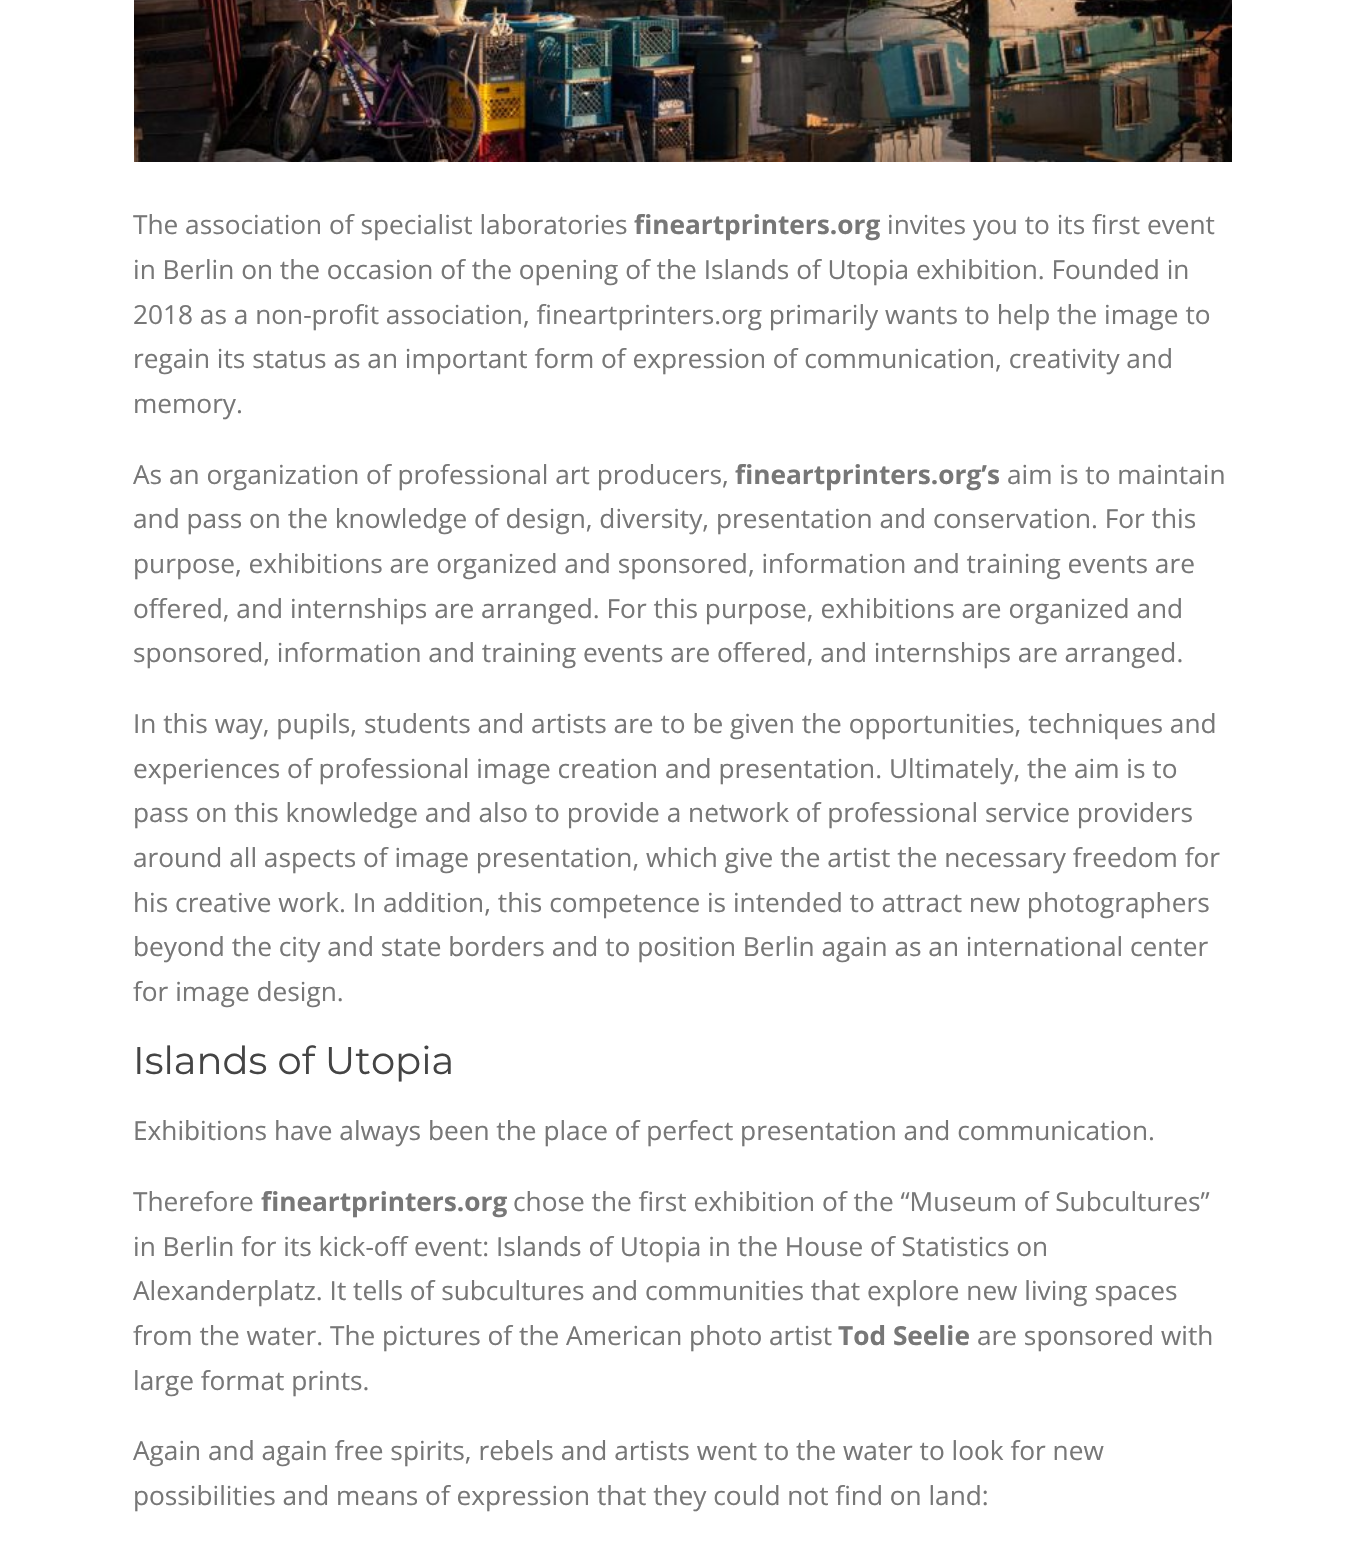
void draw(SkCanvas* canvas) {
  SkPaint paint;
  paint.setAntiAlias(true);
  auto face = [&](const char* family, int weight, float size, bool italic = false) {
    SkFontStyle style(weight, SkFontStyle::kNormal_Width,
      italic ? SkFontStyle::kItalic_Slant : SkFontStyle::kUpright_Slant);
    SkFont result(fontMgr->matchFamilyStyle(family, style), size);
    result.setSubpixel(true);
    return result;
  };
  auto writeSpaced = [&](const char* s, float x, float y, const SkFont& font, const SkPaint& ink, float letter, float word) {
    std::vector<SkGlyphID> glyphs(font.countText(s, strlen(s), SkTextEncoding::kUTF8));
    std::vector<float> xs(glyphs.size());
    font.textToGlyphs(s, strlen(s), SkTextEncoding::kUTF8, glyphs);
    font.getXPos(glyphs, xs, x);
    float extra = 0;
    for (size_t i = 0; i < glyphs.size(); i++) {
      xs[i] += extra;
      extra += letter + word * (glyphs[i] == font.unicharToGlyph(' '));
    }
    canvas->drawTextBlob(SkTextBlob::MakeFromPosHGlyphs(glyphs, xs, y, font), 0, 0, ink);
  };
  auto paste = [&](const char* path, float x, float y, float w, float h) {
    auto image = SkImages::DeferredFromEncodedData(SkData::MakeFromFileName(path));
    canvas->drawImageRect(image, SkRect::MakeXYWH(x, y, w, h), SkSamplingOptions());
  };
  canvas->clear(0xffffffff);
  paste("img/1.png", 134, 0, 1098, 162);
  auto f0 = face("Open Sans", 400, 26.25f);
  paint.setColor(0xff777777);
  canvas->drawString("The association of specialist laboratories", 133, 234, f0, paint);
  auto f1 = face("Open Sans", 700, 26.25f);
  canvas->drawString("fineartprinters.org", 634, 234, f1, paint);
  {
    const struct { const char* s; float x, y; } items[] = {
      {"invites you to its first event", 887, 234},
      {"in Berlin on the occasion of the opening of the Islands of Utopia exhibition. Founded in", 133, 279},
      {"2018 as a non-profit association, fineartprinters.org primarily wants to help the image to", 133, 324},
      {"regain its status as an important form of expression of communication, creativity and", 133, 368},
      {"memory.", 133, 413},
      {"As an organization of professional art producers,", 133, 484},
    };
    for (auto [s, x, y] : items) {
      canvas->drawString(s, x, y, f0, paint);
    }
  }
  canvas->drawString("fineartprinters.org’s", 735, 484, f1, paint);
  canvas->drawString("aim is to maintain", 1007, 484, f0, paint);
  canvas->drawString("and pass on the knowledge of design, diversity, presentation and conservation. For this", 133, 528, f0, paint);
  writeSpaced("purpose, exhibitions are organized and sponsored, information and training events are", 133, 573, f0, paint, 0, -0.1f);
  canvas->drawString("offered, and internships are arranged. For this purpose, exhibitions are organized and", 133, 618, f0, paint);
  writeSpaced("sponsored, information and training events are offered, and internships are arranged.", 133, 662, f0, paint, 0, -0.1f);
  {
    const struct { const char* s; float x, y; } items[] = {
      {"In this way, pupils, students and artists are to be given the opportunities, techniques and", 133, 733},
      {"experiences of professional image creation and presentation. Ultimately, the aim is to", 133, 778},
      {"pass on this knowledge and also to provide a network of professional service providers", 133, 822},
      {"around all aspects of image presentation, which give the artist the necessary freedom for", 133, 867},
      {"his creative work. In addition, this competence is intended to attract new photographers", 133, 912},
      {"beyond the city and state borders and to position Berlin again as an international center", 133, 956},
      {"for image design.", 133, 1001},
    };
    for (auto [s, x, y] : items) {
      canvas->drawString(s, x, y, f0, paint);
    }
  }
  auto f2 = face("Montserrat", 400, 38.5f);
  paint.setColor(0xff444444);
  canvas->drawString("Islands of Utopia", 133, 1074, f2, paint);
  paint.setColor(0xff777777);
  canvas->drawString("Exhibitions have always been the place of perfect presentation and communication.", 133, 1140, f0, paint);
  canvas->drawString("Therefore", 133, 1211, f0, paint);
  canvas->drawString("fineartprinters.org", 261, 1211, f1, paint);
  {
    const struct { const char* s; float x, y; } items[] = {
      {"chose the first exhibition of the “Museum of Subcultures”", 513, 1211},
      {"in Berlin for its kick-off event: Islands of Utopia in the House of Statistics on", 133, 1256},
      {"Alexanderplatz. It tells of subcultures and communities that explore new living spaces", 133, 1300},
      {"from the water. The pictures of the American photo artist", 133, 1345},
    };
    for (auto [s, x, y] : items) {
      canvas->drawString(s, x, y, f0, paint);
    }
  }
  canvas->drawString("Tod Seelie", 838, 1345, f1, paint);
  {
    const struct { const char* s; float x, y; } items[] = {
      {"are sponsored with", 977, 1345},
      {"large format prints.", 133, 1390},
      {"Again and again free spirits, rebels and artists went to the water to look for new", 133, 1460},
      {"possibilities and means of expression that they could not find on land:", 133, 1505},
    };
    for (auto [s, x, y] : items) {
      canvas->drawString(s, x, y, f0, paint);
    }
  }
}
